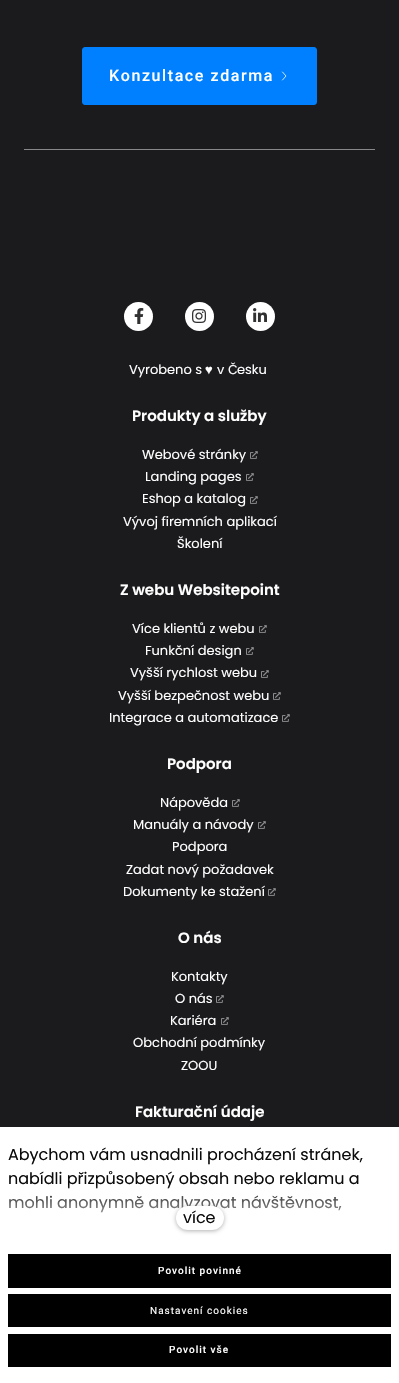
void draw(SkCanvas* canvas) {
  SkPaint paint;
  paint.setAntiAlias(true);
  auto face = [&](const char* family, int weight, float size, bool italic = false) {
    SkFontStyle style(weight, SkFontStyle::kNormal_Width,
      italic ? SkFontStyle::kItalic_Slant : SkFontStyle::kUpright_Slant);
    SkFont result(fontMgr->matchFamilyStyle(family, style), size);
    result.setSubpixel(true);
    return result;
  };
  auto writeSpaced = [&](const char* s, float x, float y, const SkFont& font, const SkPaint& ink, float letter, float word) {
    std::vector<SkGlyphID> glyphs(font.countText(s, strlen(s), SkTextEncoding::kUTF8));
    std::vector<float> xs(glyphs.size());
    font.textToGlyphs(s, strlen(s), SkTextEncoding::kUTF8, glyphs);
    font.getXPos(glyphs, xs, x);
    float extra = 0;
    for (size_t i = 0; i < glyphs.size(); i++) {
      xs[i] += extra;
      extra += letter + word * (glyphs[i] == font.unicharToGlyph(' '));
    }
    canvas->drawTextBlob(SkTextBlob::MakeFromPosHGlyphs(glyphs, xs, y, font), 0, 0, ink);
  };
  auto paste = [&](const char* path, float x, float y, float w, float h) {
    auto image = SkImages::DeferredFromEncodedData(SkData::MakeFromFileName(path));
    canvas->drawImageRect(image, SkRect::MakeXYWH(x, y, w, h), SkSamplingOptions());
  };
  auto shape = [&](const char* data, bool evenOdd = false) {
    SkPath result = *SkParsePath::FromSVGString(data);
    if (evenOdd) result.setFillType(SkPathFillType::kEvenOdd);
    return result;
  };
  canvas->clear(0xff1b1b1e);
  paint.setColor(0xff0080ff);
  canvas->drawRoundRect(SkRect::MakeXYWH(82.5f, 47.5f, 234, 57), 2.5f, 2.5f, paint);
  paint.setStroke(true);
  paint.setStrokeWidth(1);
  canvas->drawRoundRect(SkRect::MakeXYWH(82.5f, 47.5f, 234, 57), 2.5f, 2.5f, paint);
  paint.setStrokeWidth(0.8f);
  paint.setStrokeCap(SkPaint::kRound_Cap);
  paint.setStrokeJoin(SkPaint::kRound_Join);
  paint.setColor(0xffffffff);
  canvas->drawPath(shape("M282.5 72L286 76L282.5 80"), paint);
  paint.setStroke(false);
  paint.setColor(0xff888888);
  canvas->drawRect(SkRect::MakeXYWH(24, 149, 351, 1), paint);
  paint.setColor(0xffffffff);
  canvas->drawCircle(138.5f, 316.5f, 14.5f, paint);
  paste("img/1.png", 134, 308, 10, 16);
  canvas->drawCircle(199.5f, 316.5f, 14.5f, paint);
  paste("img/2.png", 192, 309, 14, 14);
  canvas->drawCircle(260.5f, 316.5f, 14.5f, paint);
  paste("img/3.png", 253, 308, 14, 14);
  paste("img/4.png", 250, 451, 8, 8);
  paste("img/4.png", 246, 473, 8, 8);
  paste("img/4.png", 250, 496, 8, 8);
  paste("img/4.png", 259, 625, 8, 8);
  paste("img/4.png", 246, 647, 8, 8);
  paste("img/4.png", 261, 670, 8, 8);
  paste("img/4.png", 273, 692, 8, 8);
  paste("img/4.png", 282, 714, 8, 8);
  paste("img/4.png", 232, 799, 8, 8);
  paste("img/4.png", 258, 821, 8, 8);
  paste("img/4.png", 268, 888, 8, 8);
  paste("img/4.png", 216, 995, 8, 8);
  paste("img/4.png", 221, 1017, 8, 8);
  {
    const struct { float x, y, w, h; SkColor color; } items[] = {
      {0, 1127, 399, 256, 0xffffffff},
      {8, 1254, 383, 34, 0xff000000},
      {8, 1294, 383, 33, 0xff000000},
      {8, 1334, 383, 33, 0xff000000},
    };
    for (auto [x, y, w, h, color] : items) {
      paint.setColor(color);
      canvas->drawRect(SkRect::MakeXYWH(x, y, w, h), paint);
    }
  }
  auto f0 = face("Roboto", 500, 16);
  paint.setColor(0xffffffff);
  writeSpaced("Konzultace zdarma", 109, 81, f0, paint, 1.6f, 0);
  auto f1 = face("Poppins", 400, 13);
  canvas->drawString("Vyrobeno s", 129, 374, f1, paint);
  auto f2 = face("Liberation Sans", 400, 13);
  canvas->drawString("♥", 205, 374, f2, paint);
  canvas->drawString("v", 217, 374, f1, paint);
  canvas->drawString("Č", 228, 374, f2, paint);
  canvas->drawString("esku", 237, 374, f1, paint);
  auto f3 = face("Poppins", 600, 15);
  canvas->drawString("Produkty a služby", 132, 421, f3, paint);
  {
    const struct { const char* s; float x, y; } items[] = {
      {"Webové stránky", 142, 459},
      {"Landing pages", 145, 481},
      {"Eshop a katalog", 142, 503},
      {"Vývoj firemních aplikací", 123, 526},
      {"Školení", 177, 548},
    };
    for (auto [s, x, y] : items) {
      canvas->drawString(s, x, y, f1, paint);
    }
  }
  canvas->drawString("Z webu Websitepoint", 120, 595, f3, paint);
  {
    const struct { const char* s; float x, y; } items[] = {
      {"Více klientů z webu", 132, 633},
      {"Funkční design", 145, 655},
      {"Vyšší rychlost webu", 130, 677},
      {"Vyšší bezpečnost webu", 118, 700},
      {"Integrace a automatizace", 109, 722},
    };
    for (auto [s, x, y] : items) {
      canvas->drawString(s, x, y, f1, paint);
    }
  }
  canvas->drawString("Podpora", 167, 769, f3, paint);
  {
    const struct { const char* s; float x, y; } items[] = {
      {"Nápověda", 160, 807},
      {"Manuály a návody", 133, 829},
      {"Podpora", 172, 851},
      {"Zadat nový požadavek", 126, 874},
      {"Dokumenty ke stažení", 123, 896},
    };
    for (auto [s, x, y] : items) {
      canvas->drawString(s, x, y, f1, paint);
    }
  }
  canvas->drawString("O nás", 178, 943, f3, paint);
  {
    const struct { const char* s; float x, y; } items[] = {
      {"Kontakty", 171, 981},
      {"O nás", 175, 1003},
      {"Kariéra", 170, 1025},
      {"Obchodní podmínky", 133, 1047},
      {"ZOOU", 181, 1070},
    };
    for (auto [s, x, y] : items) {
      canvas->drawString(s, x, y, f1, paint);
    }
  }
  canvas->drawString("Fakturační údaje", 135, 1117, f3, paint);
  auto f4 = face("Poppins", 400, 16);
  paint.setColor(0xff0b0b0b);
  {
    const struct { const char* s; float x, y; } items[] = {
      {"Abychom vám usnadnili procházení stránek,", 8, 1160},
      {"nabídli přizpůsobený obsah nebo reklamu a", 8, 1184},
      {"mohli anonymně analyzovat návštěvnost,", 8, 1208},
    };
    for (auto [s, x, y] : items) {
      canvas->drawString(s, x, y, f4, paint);
    }
  }
  {
    const SkColor colors[] = {0xffffffff, 0x00ffffff};
    const float stops[] = {0, 1};
    const SkPoint ends[] = {{200, 1238}, {200, 1184}};
    paint.setShader(SkGradientShader::MakeLinear(ends, colors, stops, 2, SkTileMode::kClamp));
    paint.setAlpha(255);
  }
  canvas->drawRect(SkRect::MakeXYWH(9, 1185, 333, 28), paint);
  paint.setShader(nullptr);
  paint.setColor(0x4d000000);
  paint.setMaskFilter(SkMaskFilter::MakeBlur(kNormal_SkBlurStyle, 2));
  canvas->drawRoundRect(SkRect::MakeXYWH(176, 1207, 48, 24), 12, 12, paint);
  paint.setMaskFilter(nullptr);
  paint.setColor(0xffffffff);
  canvas->drawRoundRect(SkRect::MakeXYWH(176, 1206, 48, 24), 12, 12, paint);
  paint.setColor(0xff0b0b0b);
  canvas->drawString("více", 183, 1223, f4, paint);
  auto f5 = face("Roboto", 500, 10);
  paint.setColor(0xffffffff);
  writeSpaced("Povolit povinné", 158, 1274, f5, paint, 1, 0);
  auto f6 = face("Roboto", 400, 10);
  writeSpaced("Nastavení cookies", 150, 1314, f6, paint, 1, 0);
  writeSpaced("Povolit vše", 169, 1353, f5, paint, 1, 0);
}
